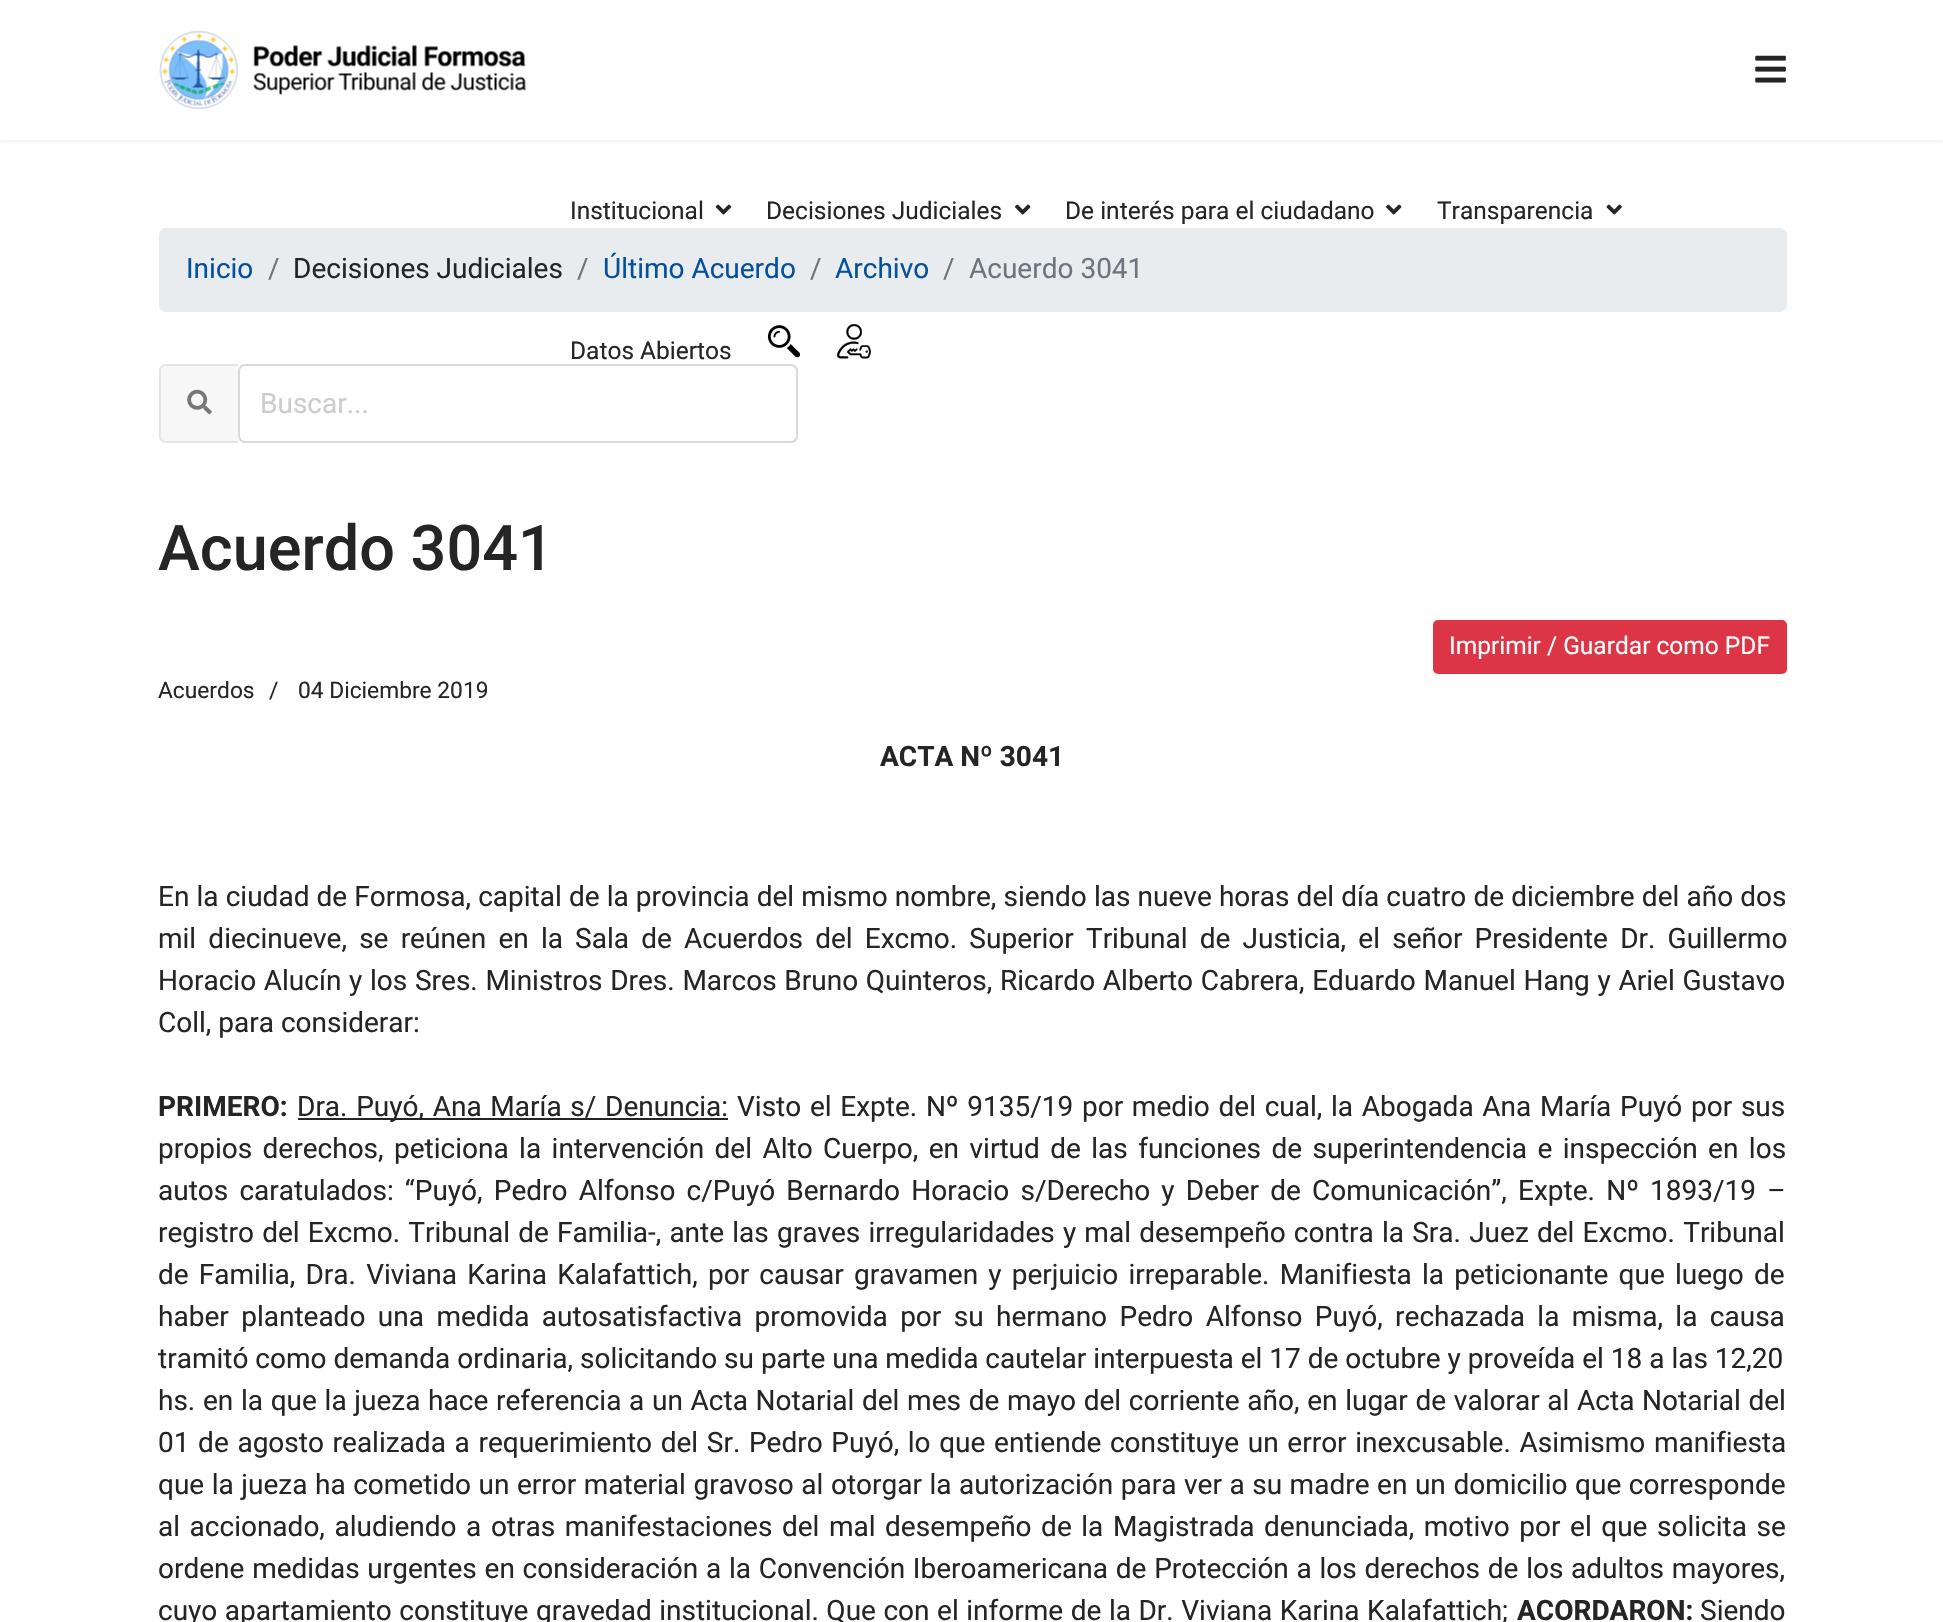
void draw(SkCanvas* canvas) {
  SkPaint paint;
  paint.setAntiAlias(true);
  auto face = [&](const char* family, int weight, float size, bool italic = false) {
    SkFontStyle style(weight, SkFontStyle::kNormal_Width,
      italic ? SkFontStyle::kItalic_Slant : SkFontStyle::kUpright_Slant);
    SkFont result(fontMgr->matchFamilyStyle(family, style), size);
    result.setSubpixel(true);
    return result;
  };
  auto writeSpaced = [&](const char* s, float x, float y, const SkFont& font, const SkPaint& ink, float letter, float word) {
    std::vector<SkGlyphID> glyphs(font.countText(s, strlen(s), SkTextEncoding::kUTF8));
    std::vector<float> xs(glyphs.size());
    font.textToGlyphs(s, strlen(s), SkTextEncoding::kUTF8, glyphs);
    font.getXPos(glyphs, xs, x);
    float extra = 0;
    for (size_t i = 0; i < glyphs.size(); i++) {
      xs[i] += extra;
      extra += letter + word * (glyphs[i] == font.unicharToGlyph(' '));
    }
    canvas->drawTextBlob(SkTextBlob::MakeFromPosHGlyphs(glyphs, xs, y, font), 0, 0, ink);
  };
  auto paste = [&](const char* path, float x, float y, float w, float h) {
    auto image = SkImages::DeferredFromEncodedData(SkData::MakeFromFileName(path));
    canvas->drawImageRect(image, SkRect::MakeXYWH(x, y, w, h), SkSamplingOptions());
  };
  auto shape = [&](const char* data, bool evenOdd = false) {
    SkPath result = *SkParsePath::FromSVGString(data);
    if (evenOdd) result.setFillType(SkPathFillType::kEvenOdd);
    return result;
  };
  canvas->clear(0xffffffff);
  canvas->save();
  canvas->clipRect(SkRect::MakeXYWH(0, 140, 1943, 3));
  paint.setColor(0x1a000000);
  paint.setMaskFilter(SkMaskFilter::MakeBlur(kNormal_SkBlurStyle, 3.5f));
  canvas->drawRect(SkRect::MakeXYWH(0, 0, 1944, 140), paint);
  paint.setMaskFilter(nullptr);
  canvas->restore();
  paste("img/1.png", 159, 30, 367, 80);
  paste("img/2.png", 1755, 55, 31, 28);
  paste("img/3.png", 715, 204, 17, 11);
  paste("img/4.png", 1015, 204, 16, 11);
  paste("img/4.png", 1386, 204, 16, 11);
  paste("img/5.png", 1606, 204, 16, 11);
  paste("img/6.png", 767, 325, 34, 33);
  paste("img/7.png", 837, 324, 34, 35);
  paint.setColor(0xffe9ecef);
  canvas->drawRoundRect(SkRect::MakeXYWH(159, 228, 1628, 84), 7, 7, paint);
  paint.setColor(0xfff7f7f7);
  canvas->drawPath(shape("M166 364H238V443H166C162 443 159 440 159 436V371C159 367 162 364 166 364Z"), paint);
  paint.setColor(0xffe5e5e5);
  canvas->drawPath(shape("M166 364H238V443H166C162 443 159 440 159 436V371C159 367 162 364 166 364ZM166 366H238V441H166C163 441 161 439 161 436V371C161 368 163 366 166 366Z", true), paint);
  paste("img/8.png", 187, 389, 25, 26);
  paint.setStroke(true);
  paint.setStrokeWidth(2);
  paint.setColor(0xffd9d9d9);
  canvas->drawRoundRect(SkRect::MakeXYWH(239, 365, 558, 77), 6, 6, paint);
  paint.setStroke(false);
  paint.setColor(0xffdc3545);
  canvas->drawRoundRect(SkRect::MakeXYWH(1434, 621, 352, 52), 4, 4, paint);
  paint.setStroke(true);
  canvas->drawRoundRect(SkRect::MakeXYWH(1434, 621, 352, 52), 4, 4, paint);
  paint.setStroke(false);
  paint.setColor(0xff252525);
  canvas->drawRect(SkRect::MakeXYWH(298, 1118, 430, 2), paint);
  auto f0 = face("Roboto", 400, 24.5f);
  {
    const struct { const char* s; float x, y; } items[] = {
      {"Institucional", 570, 219},
      {"Decisiones Judiciales", 766, 219},
      {"De interés para el ciudadano", 1065, 219},
      {"Transparencia", 1437, 219},
      {"Datos Abiertos", 570, 359},
    };
    for (auto [s, x, y] : items) {
      canvas->drawString(s, x, y, f0, paint);
    }
  }
  auto f1 = face("Roboto", 400, 28);
  paint.setColor(0xff05509c);
  canvas->drawString("Inicio", 186, 278, f1, paint);
  paint.setColor(0xff6c757d);
  canvas->drawString("/", 268, 278, f1, paint);
  paint.setColor(0xff252525);
  canvas->drawString("Decisiones Judiciales", 293, 278, f1, paint);
  paint.setColor(0xff6c757d);
  canvas->drawString("/", 577, 278, f1, paint);
  paint.setColor(0xff05509c);
  canvas->drawString("Último Acuerdo", 603, 278, f1, paint);
  paint.setColor(0xff6c757d);
  canvas->drawString("/", 810, 278, f1, paint);
  paint.setColor(0xff05509c);
  canvas->drawString("Archivo", 835, 278, f1, paint);
  paint.setColor(0xff6c757d);
  canvas->drawString("/", 943, 278, f1, paint);
  canvas->drawString("Acuerdo 3041", 969, 278, f1, paint);
  paint.setColor(0xffcccccc);
  canvas->drawString("Buscar...", 260, 413, f1, paint);
  auto f2 = face("Roboto", 500, 63);
  paint.setColor(0xff252525);
  canvas->drawString("Acuerdo 3041", 158, 570, f2, paint);
  paint.setColor(0xffffffff);
  canvas->drawString("Imprimir / Guardar como PDF", 1449, 654, f0, paint);
  auto f3 = face("Roboto", 400, 22.75f);
  paint.setColor(0xff252525);
  {
    const struct { const char* s; float x, y; } items[] = {
      {"Acuerdos", 158, 698},
      {"/", 269, 698},
      {"04 Diciembre 2019", 298, 698},
    };
    for (auto [s, x, y] : items) {
      canvas->drawString(s, x, y, f3, paint);
    }
  }
  auto f4 = face("Roboto", 700, 28);
  canvas->drawString("ACTA Nº 3041", 880, 766, f4, paint);
  writeSpaced("En la ciudad de Formosa, capital de la provincia del mismo nombre, siendo las nueve horas del día cuatro de diciembre del año dos", 158, 906, f1, paint, 0, 0.2f);
  writeSpaced("mil diecinueve, se reúnen en la Sala de Acuerdos del Excmo. Superior Tribunal de Justicia, el señor Presidente Dr. Guillermo", 158, 948, f1, paint, 0, 5.25f);
  writeSpaced("Horacio Alucín y los Sres. Ministros Dres. Marcos Bruno Quinteros, Ricardo Alberto Cabrera, Eduardo Manuel Hang y Ariel Gustavo", 158, 990, f1, paint, 0, 0.75f);
  canvas->drawString("Coll, para considerar:", 158, 1032, f1, paint);
  canvas->drawString("PRIMERO:", 158, 1116, f4, paint);
  writeSpaced("Dra. Puyó, Ana María s/ Denuncia:", 297, 1116, f1, paint, 0, 1.75f);
  writeSpaced("Visto el Expte. Nº 9135/19 por medio del cual, la Abogada Ana María Puyó por sus", 737, 1116, f1, paint, 0, 1.75f);
  writeSpaced("propios derechos, peticiona la intervención del Alto Cuerpo, en virtud de las funciones de superintendencia e inspección en los", 158, 1158, f1, paint, 0, 3.5f);
  writeSpaced("autos caratulados: “Puyó, Pedro Alfonso c/Puyó Bernardo Horacio s/Derecho y Deber de Comunicación”, Expte. Nº 1893/19 –", 158, 1200, f1, paint, 0, 4.25f);
  writeSpaced("registro del Excmo. Tribunal de Familia-, ante las graves irregularidades y mal desempeño contra la Sra. Juez del Excmo. Tribunal", 158, 1242, f1, paint, 0, 1.25f);
  writeSpaced("de Familia, Dra. Viviana Karina Kalafattich, por causar gravamen y perjuicio irreparable. Manifiesta la peticionante que luego de", 158, 1284, f1, paint, 0, 3.25f);
  writeSpaced("haber planteado una medida autosatisfactiva promovida por su hermano Pedro Alfonso Puyó, rechazada la misma, la causa", 158, 1326, f1, paint, 0, 5.5f);
  canvas->drawString("tramitó como demanda ordinaria, solicitando su parte una medida cautelar interpuesta el 17 de octubre y proveída el 18 a las 12,20", 158, 1368, f1, paint);
  writeSpaced("hs. en la que la jueza hace referencia a un Acta Notarial del mes de mayo del corriente año, en lugar de valorar al Acta Notarial del", 158, 1410, f1, paint, 0, 0.75f);
  writeSpaced("01 de agosto realizada a requerimiento del Sr. Pedro Puyó, lo que entiende constituye un error inexcusable. Asimismo manifiesta", 158, 1452, f1, paint, 0, 1.7f);
  writeSpaced("que la jueza ha cometido un error material gravoso al otorgar la autorización para ver a su madre en un domicilio que corresponde", 158, 1494, f1, paint, 0, 0.6f);
  writeSpaced("al accionado, aludiendo a otras manifestaciones del mal desempeño de la Magistrada denunciada, motivo por el que solicita se", 158, 1536, f1, paint, 0, 2.6f);
  writeSpaced("ordene medidas urgentes en consideración a la Convención Iberoamericana de Protección a los derechos de los adultos mayores,", 158, 1578, f1, paint, 0, 0.8f);
  writeSpaced("cuyo apartamiento constituye gravedad institucional. Que con el informe de la Dr. Viviana Karina Kalafattich;", 158, 1620, f1, paint, 0, 0.6f);
  canvas->drawString("ACORDARON:", 1517, 1620, f4, paint);
  canvas->drawString("Siendo", 1700, 1620, f1, paint);
}
